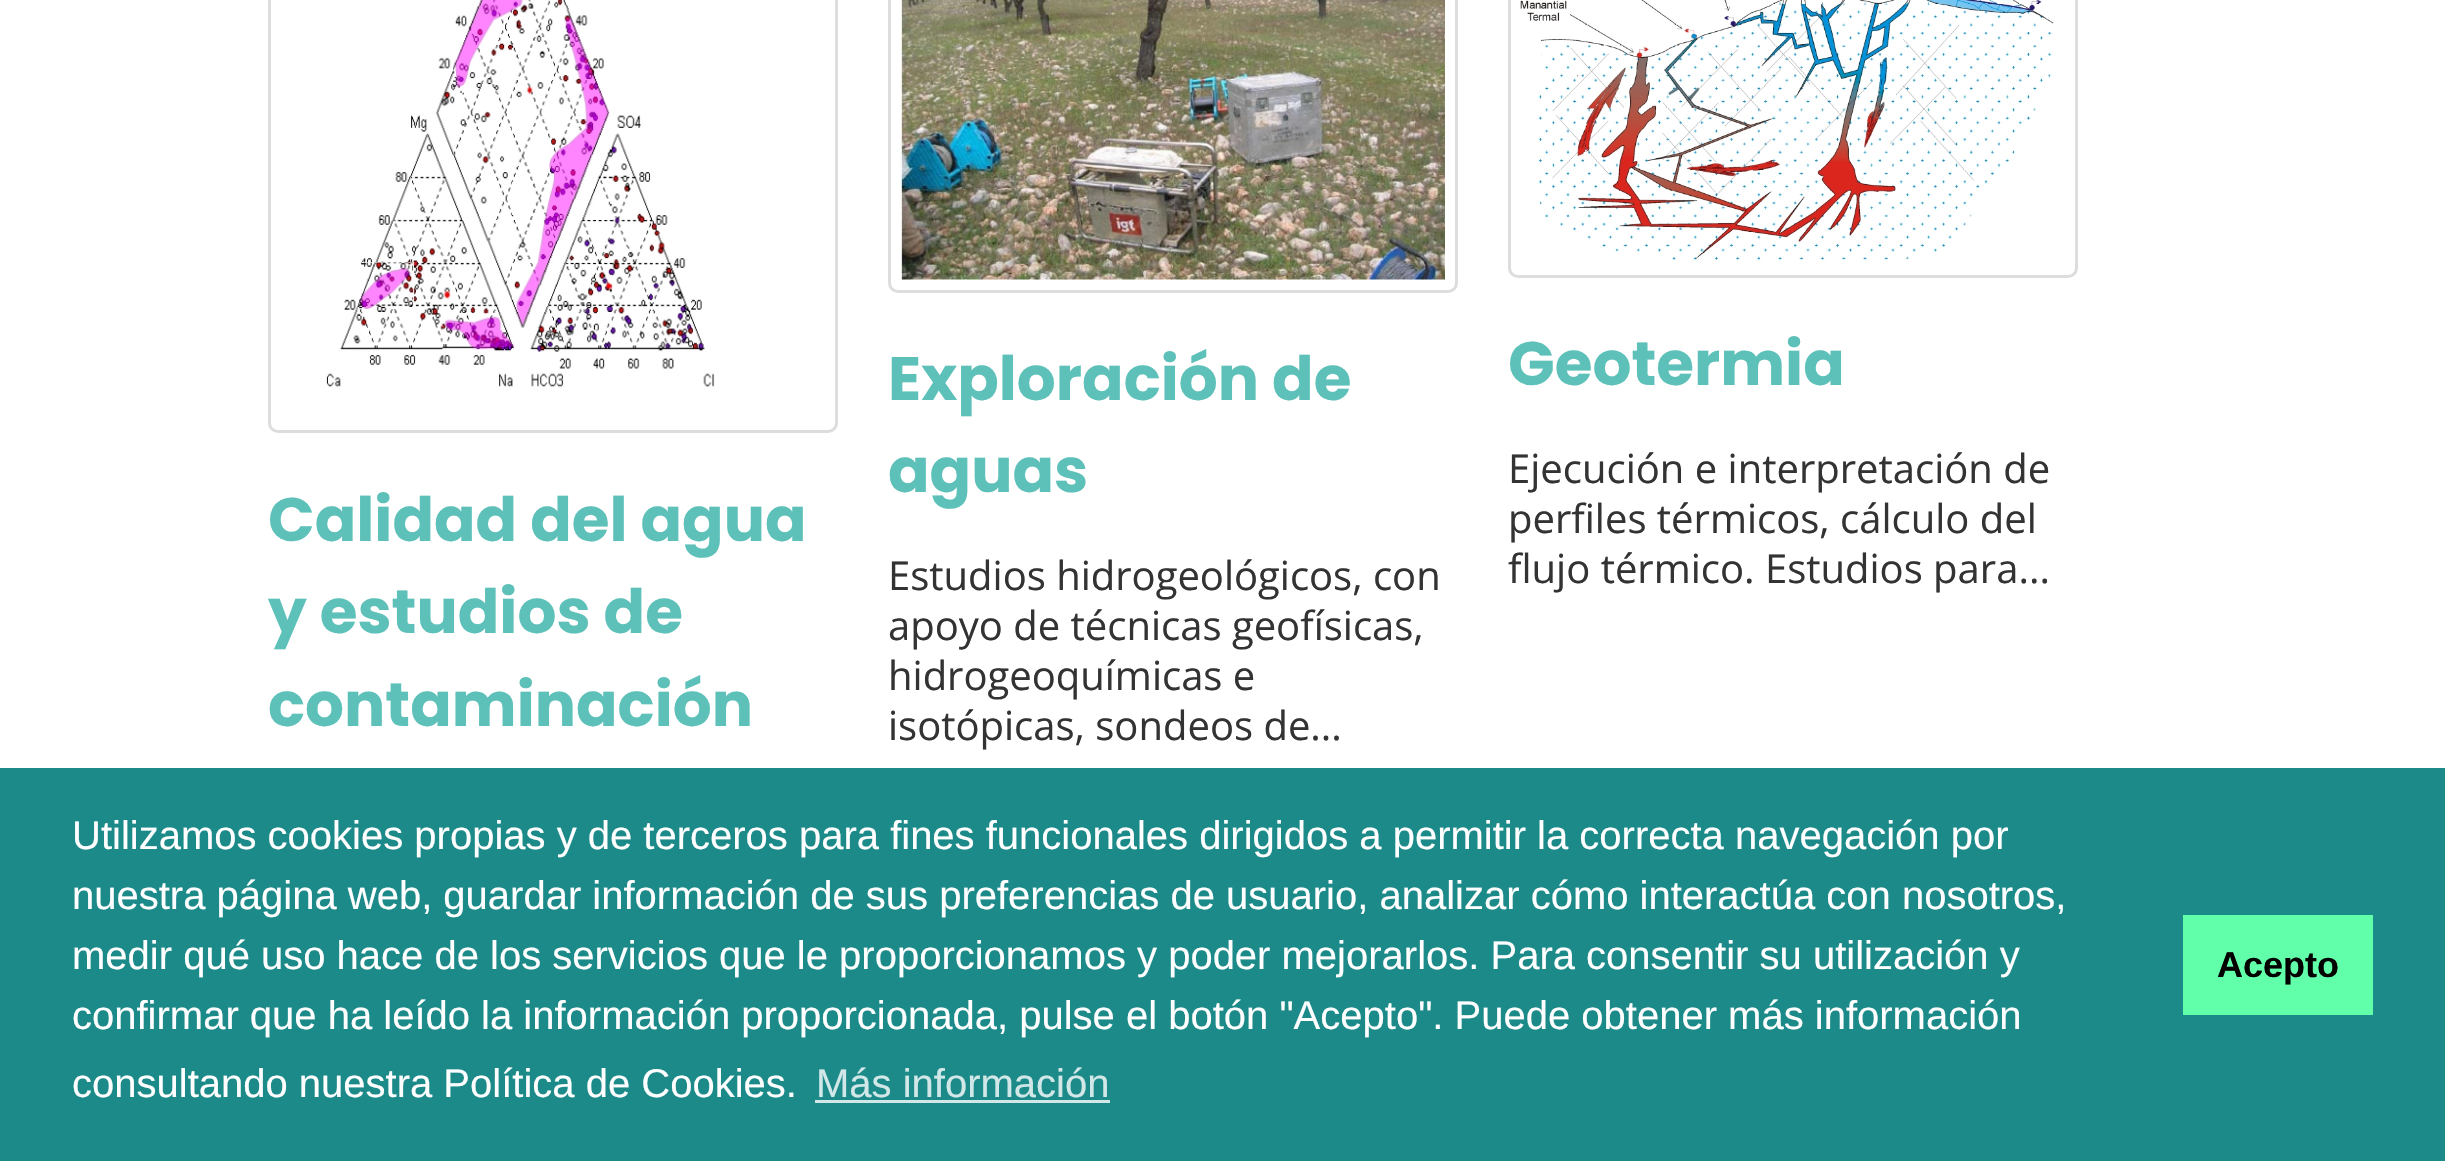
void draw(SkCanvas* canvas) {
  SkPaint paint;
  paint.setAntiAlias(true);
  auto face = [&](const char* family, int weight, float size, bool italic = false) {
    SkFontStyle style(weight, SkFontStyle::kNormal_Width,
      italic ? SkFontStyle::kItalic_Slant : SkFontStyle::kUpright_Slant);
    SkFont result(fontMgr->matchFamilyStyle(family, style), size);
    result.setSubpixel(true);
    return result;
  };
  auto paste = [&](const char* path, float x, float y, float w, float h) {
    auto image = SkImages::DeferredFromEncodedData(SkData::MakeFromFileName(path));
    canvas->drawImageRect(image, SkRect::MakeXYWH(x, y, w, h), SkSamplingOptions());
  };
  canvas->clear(0xffffffff);
  paint.setStroke(true);
  paint.setStrokeWidth(3);
  paint.setColor(0xffdddddd);
  canvas->drawRoundRect(SkRect::MakeXYWH(269.5f, -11.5f, 567, 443), 8.5f, 8.5f, paint);
  paste("img/1.png", 326, 0, 389, 387);
  canvas->drawRoundRect(SkRect::MakeXYWH(889.5f, -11.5f, 567, 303), 8.5f, 8.5f, paint);
  paste("img/2.png", 900, 0, 545, 280);
  canvas->drawRoundRect(SkRect::MakeXYWH(1509.5f, -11.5f, 567, 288), 8.5f, 8.5f, paint);
  paste("img/3.png", 1520, 0, 534, 261);
  paint.setStroke(false);
  {
    const struct { float x, y, w, h; SkColor color; } items[] = {
      {0, 768, 2445, 393, 0xff1d8a8a},
      {815, 1100, 295, 3, 0xffd2e8e8},
      {2183, 915, 190, 100, 0xff62ffaa},
    };
    for (auto [x, y, w, h, color] : items) {
      paint.setColor(color);
      canvas->drawRect(SkRect::MakeXYWH(x, y, w, h), paint);
    }
  }
  auto f0 = face("Poppins", 700, 61.25f);
  paint.setColor(0xff5dc1b9);
  {
    const struct { const char* s; float x, y; } items[] = {
      {"Calidad del agua", 268, 541},
      {"y estudios de", 268, 633},
      {"contaminación", 268, 726},
      {"Exploración de", 888, 400},
      {"aguas", 888, 492},
    };
    for (auto [s, x, y] : items) {
      canvas->drawString(s, x, y, f0, paint);
    }
  }
  auto f1 = face("Open Sans", 400, 40);
  paint.setColor(0xff333333);
  {
    const struct { const char* s; float x, y; } items[] = {
      {"Estudios hidrogeológicos, con", 888, 590},
      {"apoyo de técnicas geofísicas,", 888, 640},
      {"hidrogeoquímicas e", 888, 690},
      {"isotópicas, sondeos de...", 888, 740},
    };
    for (auto [s, x, y] : items) {
      canvas->drawString(s, x, y, f1, paint);
    }
  }
  paint.setColor(0xff5dc1b9);
  canvas->drawString("Geotermia", 1508, 385, f0, paint);
  paint.setColor(0xff333333);
  {
    const struct { const char* s; float x, y; } items[] = {
      {"Ejecución e interpretación de", 1508, 483},
      {"perfiles térmicos, cálculo del", 1508, 533},
      {"flujo térmico. Estudios para...", 1508, 583},
    };
    for (auto [s, x, y] : items) {
      canvas->drawString(s, x, y, f1, paint);
    }
  }
  auto f2 = face("Liberation Sans", 400, 40);
  paint.setColor(0xffffffff);
  {
    const struct { const char* s; float x, y; } items[] = {
      {"Utilizamos cookies propias y de terceros para fines funcionales dirigidos a permitir la correcta navegación por", 72, 849},
      {"nuestra página web, guardar información de sus preferencias de usuario, analizar cómo interactúa con nosotros,", 72, 909},
      {"medir qué uso hace de los servicios que le proporcionamos y poder mejorarlos. Para consentir su utilización y", 72, 969},
      {"confirmar que ha leído la información proporcionada, pulse el botón \"Acepto\". Puede obtener más información", 72, 1029},
      {"consultando nuestra Política de Cookies.", 72, 1097},
    };
    for (auto [s, x, y] : items) {
      canvas->drawString(s, x, y, f2, paint);
    }
  }
  paint.setColor(0xffd2e8e8);
  canvas->drawString("Más información", 816, 1097, f2, paint);
  auto f3 = face("Liberation Sans", 700, 36);
  paint.setColor(0xff000000);
  canvas->drawString("Acepto", 2217, 977, f3, paint);
}
